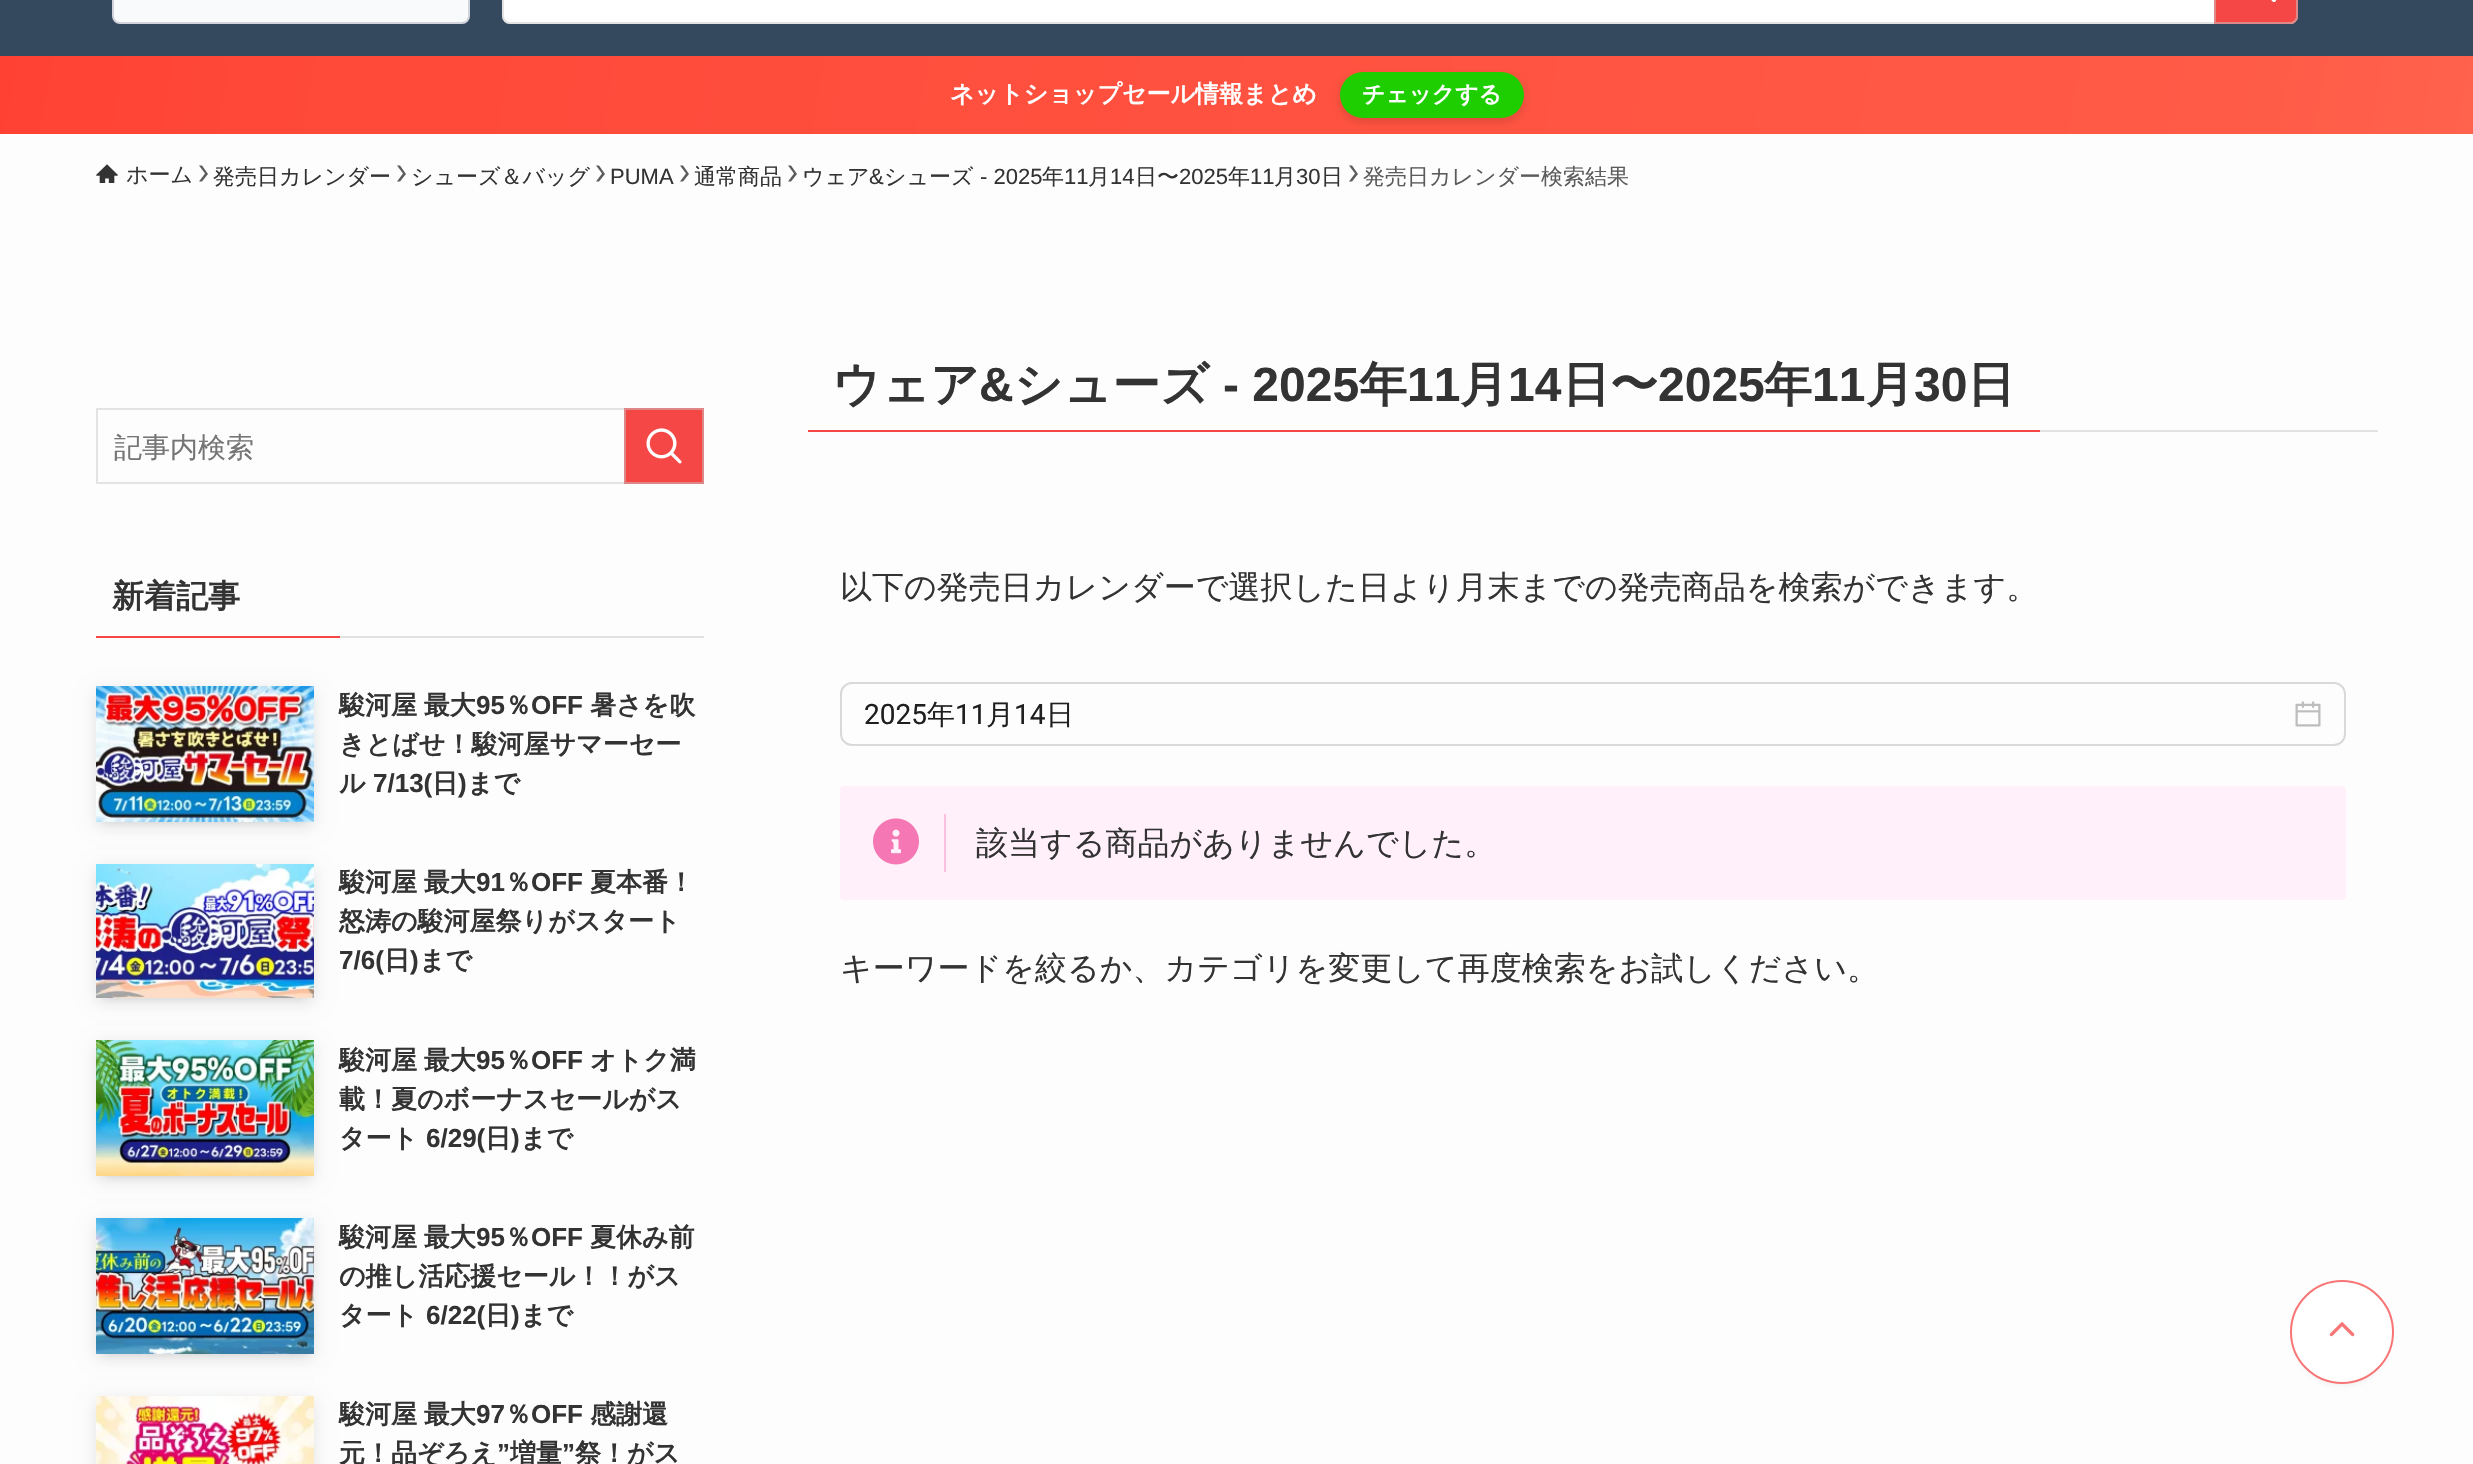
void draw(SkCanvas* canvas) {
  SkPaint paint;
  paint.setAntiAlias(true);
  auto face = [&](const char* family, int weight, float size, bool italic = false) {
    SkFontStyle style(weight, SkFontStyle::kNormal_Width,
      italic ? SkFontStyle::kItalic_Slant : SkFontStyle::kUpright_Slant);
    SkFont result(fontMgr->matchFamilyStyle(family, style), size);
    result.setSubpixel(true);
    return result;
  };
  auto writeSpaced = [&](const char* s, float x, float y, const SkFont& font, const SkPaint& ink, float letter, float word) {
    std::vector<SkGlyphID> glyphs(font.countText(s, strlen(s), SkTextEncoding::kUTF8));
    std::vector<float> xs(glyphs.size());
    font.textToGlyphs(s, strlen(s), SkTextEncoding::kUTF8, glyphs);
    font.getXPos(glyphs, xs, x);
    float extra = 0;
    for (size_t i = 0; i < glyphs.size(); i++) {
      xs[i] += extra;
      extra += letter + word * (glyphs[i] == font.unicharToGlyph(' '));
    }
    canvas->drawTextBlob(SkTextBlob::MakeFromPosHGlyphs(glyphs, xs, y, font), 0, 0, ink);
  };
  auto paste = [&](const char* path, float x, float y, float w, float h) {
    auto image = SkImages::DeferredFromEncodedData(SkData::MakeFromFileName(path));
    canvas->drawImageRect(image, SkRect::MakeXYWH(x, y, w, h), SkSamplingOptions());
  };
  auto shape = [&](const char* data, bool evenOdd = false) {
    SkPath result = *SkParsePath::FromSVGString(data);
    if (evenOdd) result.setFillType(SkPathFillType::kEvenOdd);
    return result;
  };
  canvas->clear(0xfffdfdfd);
  paint.setColor(0xff34495e);
  canvas->drawRect(SkRect::MakeXYWH(0, 0, 2473, 56), paint);
  paint.setColor(0xfff9fafb);
  canvas->drawRoundRect(SkRect::MakeXYWH(113, -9, 356, 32), 7, 7, paint);
  paint.setStroke(true);
  paint.setStrokeWidth(2);
  paint.setColor(0xffd1d5db);
  canvas->drawRoundRect(SkRect::MakeXYWH(113, -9, 356, 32), 7, 7, paint);
  paint.setStroke(false);
  paint.setColor(0xffffffff);
  canvas->drawRoundRect(SkRect::MakeXYWH(502, -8, 1796, 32), 8, 8, paint);
  paint.setStroke(true);
  paint.setColor(0x80c7c7c7);
  canvas->drawRoundRect(SkRect::MakeXYWH(503, -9, 1794, 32), 7, 7, paint);
  paint.setStroke(false);
  paint.setColor(0xfff64747);
  canvas->drawPath(shape("M2214-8H2290C2294.5-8 2298-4.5 2298 0V16C2298 20.5 2294.5 24 2290 24H2214Z"), paint);
  paint.setStroke(true);
  paint.setColor(0x80c7c7c7);
  canvas->drawPath(shape("M2215-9H2290C2294-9 2297-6 2297-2V16C2297 20 2294 23 2290 23H2215Z"), paint);
  paint.setStrokeWidth(4);
  paint.setStrokeCap(SkPaint::kRound_Cap);
  paint.setStrokeJoin(SkPaint::kRound_Join);
  paint.setColor(0xffffffff);
  canvas->drawPath(shape("M2274 0L2266-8M2266-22C2266-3.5 2238-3.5 2238-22C2238-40.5 2266-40.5 2266-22Z"), paint);
  paint.setStroke(false);
  {
    const SkColor colors[] = {0xffff4133, 0xffff4838, 0xffff5b47, 0xffff624d};
    const float stops[] = {0, 0.1f, 0.9f, 1};
    const SkPoint ends[] = {{31, -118}, {2443, 308}};
    paint.setShader(SkGradientShader::MakeLinear(ends, colors, stops, 4, SkTileMode::kClamp));
    paint.setAlpha(255);
  }
  canvas->drawRect(SkRect::MakeXYWH(0, 56, 2473, 78), paint);
  paint.setShader(nullptr);
  paint.setColor(0x1f000000);
  paint.setMaskFilter(SkMaskFilter::MakeBlur(kNormal_SkBlurStyle, 4));
  canvas->drawRoundRect(SkRect::MakeXYWH(1340, 76, 184, 46), 23, 23, paint);
  paint.setMaskFilter(nullptr);
  paint.setColor(0xff1ece00);
  canvas->drawRoundRect(SkRect::MakeXYWH(1340, 72, 184, 46), 23, 23, paint);
  paste("img/1.png", 96, 164, 22, 19);
  paint.setColor(0xff5b5b5b);
  canvas->drawPath(shape("M202 165.5H199L205 173.5L199 181.5H202L208 174Z"), paint);
  canvas->drawPath(shape("M400 165.5H397L403 173.5L397 181.5H400L406 174Z"), paint);
  canvas->drawPath(shape("M599 165.5H596L602 173.5L596 181.5H599L605 174Z"), paint);
  canvas->drawPath(shape("M683 165.5H680L686 173.5L680 181.5H683L689 174Z"), paint);
  canvas->drawPath(shape("M791 165.5H788L794 173.5L788 181.5H791L797 174Z"), paint);
  canvas->drawPath(shape("M1352 165.5H1349L1355 173.5L1349 181.5H1352L1358 174Z"), paint);
  paint.setStroke(true);
  paint.setStrokeWidth(2);
  paint.setStrokeCap(SkPaint::kButt_Cap);
  paint.setStrokeJoin(SkPaint::kMiter_Join);
  paint.setColor(0xffe3e3e3);
  canvas->drawRect(SkRect::MakeXYWH(97, 409, 606, 74), paint);
  paint.setStroke(false);
  paint.setColor(0xfff64747);
  canvas->drawRect(SkRect::MakeXYWH(625, 409, 78, 74), paint);
  paint.setStroke(true);
  paint.setColor(0xffdf8787);
  canvas->drawRect(SkRect::MakeXYWH(625, 409, 78, 74), paint);
  paste("img/2.png", 646, 428, 36, 36);
  paint.setStroke(false);
  paint.setColor(0xfff64747);
  canvas->drawRect(SkRect::MakeXYWH(96, 636, 244, 2), paint);
  paint.setColor(0xffe2e2e2);
  canvas->drawRect(SkRect::MakeXYWH(340, 636, 364, 2), paint);
  paint.setColor(0x1a000000);
  paint.setMaskFilter(SkMaskFilter::MakeBlur(kNormal_SkBlurStyle, 4));
  canvas->drawRect(SkRect::MakeXYWH(104, 702, 202, 120), paint);
  paint.setMaskFilter(nullptr);
  paint.setMaskFilter(SkMaskFilter::MakeBlur(kNormal_SkBlurStyle, 8));
  canvas->drawRect(SkRect::MakeXYWH(96, 690, 218, 136), paint);
  paint.setMaskFilter(nullptr);
  paste("img/3.png", 96, 686, 218, 136);
  paint.setMaskFilter(SkMaskFilter::MakeBlur(kNormal_SkBlurStyle, 4));
  canvas->drawRect(SkRect::MakeXYWH(104, 880, 202, 118), paint);
  paint.setMaskFilter(nullptr);
  paint.setMaskFilter(SkMaskFilter::MakeBlur(kNormal_SkBlurStyle, 8));
  canvas->drawRect(SkRect::MakeXYWH(96, 868, 218, 134), paint);
  paint.setMaskFilter(nullptr);
  paste("img/4.png", 96, 864, 218, 134);
  paint.setMaskFilter(SkMaskFilter::MakeBlur(kNormal_SkBlurStyle, 4));
  canvas->drawRect(SkRect::MakeXYWH(104, 1056, 202, 120), paint);
  paint.setMaskFilter(nullptr);
  paint.setMaskFilter(SkMaskFilter::MakeBlur(kNormal_SkBlurStyle, 8));
  canvas->drawRect(SkRect::MakeXYWH(96, 1044, 218, 136), paint);
  paint.setMaskFilter(nullptr);
  paste("img/5.png", 96, 1040, 218, 136);
  paint.setMaskFilter(SkMaskFilter::MakeBlur(kNormal_SkBlurStyle, 4));
  canvas->drawRect(SkRect::MakeXYWH(104, 1234, 202, 120), paint);
  paint.setMaskFilter(nullptr);
  paint.setMaskFilter(SkMaskFilter::MakeBlur(kNormal_SkBlurStyle, 8));
  canvas->drawRect(SkRect::MakeXYWH(96, 1222, 218, 136), paint);
  paint.setMaskFilter(nullptr);
  paste("img/6.png", 96, 1218, 218, 136);
  paint.setMaskFilter(SkMaskFilter::MakeBlur(kNormal_SkBlurStyle, 8));
  canvas->drawRect(SkRect::MakeXYWH(96, 1400, 218, 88), paint);
  paint.setMaskFilter(nullptr);
  paste("img/7.png", 96, 1396, 218, 68);
  paint.setColor(0xffe2e2e2);
  canvas->drawRect(SkRect::MakeXYWH(2040, 430, 338, 2), paint);
  paint.setColor(0xfff64747);
  canvas->drawRect(SkRect::MakeXYWH(808, 430, 1232, 2), paint);
  paint.setStroke(true);
  paint.setColor(0xffd9d9d9);
  canvas->drawRoundRect(SkRect::MakeXYWH(841, 683, 1504, 62), 11, 11, paint);
  paste("img/8.png", 2295, 701, 26, 26);
  paint.setStroke(false);
  paint.setColor(0xfffff0fa);
  canvas->drawRoundRect(SkRect::MakeXYWH(840, 786, 1506, 114), 4, 4, paint);
  paste("img/9.png", 873, 818, 46, 47);
  paint.setColor(0xfffbc0de);
  canvas->drawRect(SkRect::MakeXYWH(944, 814, 2, 58), paint);
  paint.setColor(0x1a3f3f3f);
  paint.setMaskFilter(SkMaskFilter::MakeBlur(kNormal_SkBlurStyle, 4));
  canvas->drawRoundRect(SkRect::MakeXYWH(2298, 1296, 88, 88), 44, 44, paint);
  paint.setMaskFilter(nullptr);
  paint.setColor(0xffffffff);
  canvas->drawCircle(2342, 1332, 51, paint);
  paint.setStroke(true);
  paint.setColor(0xfff87575);
  canvas->drawCircle(2342, 1332, 51, paint);
  paste("img/10.png", 2329, 1322, 26, 15);
  auto f0 = face("WenQuanYi Zen Hei", 700, 24);
  paint.setStroke(false);
  paint.setColor(0xffffffff);
  canvas->drawString("ネットショップセール情報まとめ", 950, 102, f0, paint);
  auto f1 = face("WenQuanYi Zen Hei", 700, 22.75f);
  canvas->drawString("チェックする", 1362, 102, f1, paint);
  auto f2 = face("WenQuanYi Zen Hei", 500, 22);
  paint.setColor(0xff333333);
  {
    const struct { const char* s; float x, y; } items[] = {
      {"ホーム", 126, 182},
      {"発売日カレンダー", 213, 184},
      {"シューズ＆バッグ", 411, 184},
    };
    for (auto [s, x, y] : items) {
      canvas->drawString(s, x, y, f2, paint);
    }
  }
  auto f3 = face("Liberation Sans", 400, 22);
  canvas->drawString("PUMA", 610, 184, f3, paint);
  canvas->drawString("通常商品", 694, 184, f2, paint);
  canvas->drawString("ウェア", 802, 184, f2, paint);
  canvas->drawString("&", 869, 184, f3, paint);
  canvas->drawString("シューズ", 884, 184, f2, paint);
  canvas->drawString("- 2025", 980, 184, f3, paint);
  canvas->drawString("年", 1042, 184, f2, paint);
  canvas->drawString("11", 1064, 184, f3, paint);
  canvas->drawString("月", 1088, 184, f2, paint);
  canvas->drawString("14", 1110, 184, f3, paint);
  canvas->drawString("日〜", 1135, 184, f2, paint);
  canvas->drawString("2025", 1179, 184, f3, paint);
  canvas->drawString("年", 1228, 184, f2, paint);
  canvas->drawString("11", 1250, 184, f3, paint);
  canvas->drawString("月", 1274, 184, f2, paint);
  canvas->drawString("30", 1296, 184, f3, paint);
  canvas->drawString("日", 1321, 184, f2, paint);
  paint.setColor(0xff5b5b5b);
  canvas->drawString("発売日カレンダー検索結果", 1363, 184, f2, paint);
  auto f4 = face("WenQuanYi Zen Hei", 500, 28);
  paint.setColor(0xff757575);
  canvas->drawString("記事内検索", 114, 457, f4, paint);
  auto f5 = face("WenQuanYi Zen Hei", 700, 32);
  paint.setColor(0xff333333);
  canvas->drawString("新着記事", 112, 607, f5, paint);
  auto f6 = face("WenQuanYi Zen Hei", 700, 26);
  writeSpaced("駿河屋 最大", 339, 714, f6, paint, 0, -1);
  auto f7 = face("Liberation Sans", 700, 26);
  canvas->drawString("95", 476, 714, f7, paint);
  canvas->drawString("％", 505, 714, f6, paint);
  canvas->drawString("OFF", 531, 714, f7, paint);
  {
    const struct { const char* s; float x, y; } items[] = {
      {"暑さを吹", 590, 714},
      {"きとばせ！駿河屋サマーセー", 339, 753},
      {"ル", 339, 792},
    };
    for (auto [s, x, y] : items) {
      canvas->drawString(s, x, y, f6, paint);
    }
  }
  canvas->drawString("7/13(", 373, 792, f7, paint);
  canvas->drawString("日", 432, 792, f6, paint);
  canvas->drawString(")", 458, 792, f7, paint);
  canvas->drawString("まで", 467, 792, f6, paint);
  writeSpaced("駿河屋 最大", 339, 891, f6, paint, 0, -1);
  canvas->drawString("91", 476, 891, f7, paint);
  canvas->drawString("％", 505, 891, f6, paint);
  canvas->drawString("OFF", 531, 891, f7, paint);
  canvas->drawString("夏本番！", 590, 891, f6, paint);
  canvas->drawString("怒涛の駿河屋祭りがスタート", 339, 930, f6, paint);
  canvas->drawString("7/6(", 339, 969, f7, paint);
  canvas->drawString("日", 384, 969, f6, paint);
  canvas->drawString(")", 410, 969, f7, paint);
  canvas->drawString("まで", 419, 969, f6, paint);
  writeSpaced("駿河屋 最大", 339, 1069, f6, paint, 0, -1);
  canvas->drawString("95", 476, 1069, f7, paint);
  canvas->drawString("％", 505, 1069, f6, paint);
  canvas->drawString("OFF", 531, 1069, f7, paint);
  {
    const struct { const char* s; float x, y; } items[] = {
      {"オトク満", 590, 1069},
      {"載！夏のボーナスセールがス", 339, 1108},
      {"タート", 339, 1147},
    };
    for (auto [s, x, y] : items) {
      canvas->drawString(s, x, y, f6, paint);
    }
  }
  canvas->drawString("6/29(", 426, 1147, f7, paint);
  canvas->drawString("日", 485, 1147, f6, paint);
  canvas->drawString(")", 511, 1147, f7, paint);
  canvas->drawString("まで", 520, 1147, f6, paint);
  writeSpaced("駿河屋 最大", 339, 1246, f6, paint, 0, -1);
  canvas->drawString("95", 476, 1246, f7, paint);
  canvas->drawString("％", 505, 1246, f6, paint);
  canvas->drawString("OFF", 531, 1246, f7, paint);
  {
    const struct { const char* s; float x, y; } items[] = {
      {"夏休み前", 590, 1246},
      {"の推し活応援セール！！がス", 339, 1285},
      {"タート", 339, 1324},
    };
    for (auto [s, x, y] : items) {
      canvas->drawString(s, x, y, f6, paint);
    }
  }
  canvas->drawString("6/22(", 426, 1324, f7, paint);
  canvas->drawString("日", 485, 1324, f6, paint);
  canvas->drawString(")", 511, 1324, f7, paint);
  canvas->drawString("まで", 520, 1324, f6, paint);
  writeSpaced("駿河屋 最大", 339, 1423, f6, paint, 0, -1);
  canvas->drawString("97", 476, 1423, f7, paint);
  canvas->drawString("％", 505, 1423, f6, paint);
  canvas->drawString("OFF", 531, 1423, f7, paint);
  canvas->drawString("感謝還", 590, 1423, f6, paint);
  canvas->drawString("元！品ぞろえ", 339, 1462, f6, paint);
  canvas->drawString("”", 497, 1462, f7, paint);
  canvas->drawString("増量", 510, 1462, f6, paint);
  canvas->drawString("”", 562, 1462, f7, paint);
  canvas->drawString("祭！がス", 575, 1462, f6, paint);
  auto f8 = face("WenQuanYi Zen Hei", 700, 48);
  canvas->drawString("ウェア", 832, 401, f8, paint);
  auto f9 = face("Liberation Sans", 700, 48);
  canvas->drawString("&", 979, 401, f9, paint);
  canvas->drawString("シューズ", 1014, 401, f8, paint);
  canvas->drawString("- 2025", 1223, 401, f9, paint);
  canvas->drawString("年", 1359, 401, f8, paint);
  canvas->drawString("11", 1407, 401, f9, paint);
  canvas->drawString("月", 1460, 401, f8, paint);
  canvas->drawString("14", 1508, 401, f9, paint);
  canvas->drawString("日〜", 1562, 401, f8, paint);
  canvas->drawString("2025", 1658, 401, f9, paint);
  canvas->drawString("年", 1764, 401, f8, paint);
  canvas->drawString("11", 1812, 401, f9, paint);
  canvas->drawString("月", 1866, 401, f8, paint);
  canvas->drawString("30", 1914, 401, f9, paint);
  canvas->drawString("日", 1967, 401, f8, paint);
  auto f10 = face("WenQuanYi Zen Hei", 500, 32);
  canvas->drawString("以下の発売日カレンダーで選択した日より月末までの発売商品を検索ができます。", 840, 598, f10, paint);
  auto f11 = face("Roboto", 400, 28);
  paint.setColor(0xff1f1f1f);
  canvas->drawString("2025", 864, 724, f11, paint);
  canvas->drawString("年", 927, 724, f4, paint);
  canvas->drawString("11", 955, 724, f11, paint);
  canvas->drawString("月", 986, 724, f4, paint);
  canvas->drawString("14", 1014, 724, f11, paint);
  canvas->drawString("日", 1046, 724, f4, paint);
  paint.setColor(0xff333333);
  canvas->drawString("該当する商品がありませんでした。", 976, 854, f10, paint);
  canvas->drawString("キーワードを絞るか、カテゴリを変更して再度検索をお試しください。", 840, 979, f10, paint);
}
